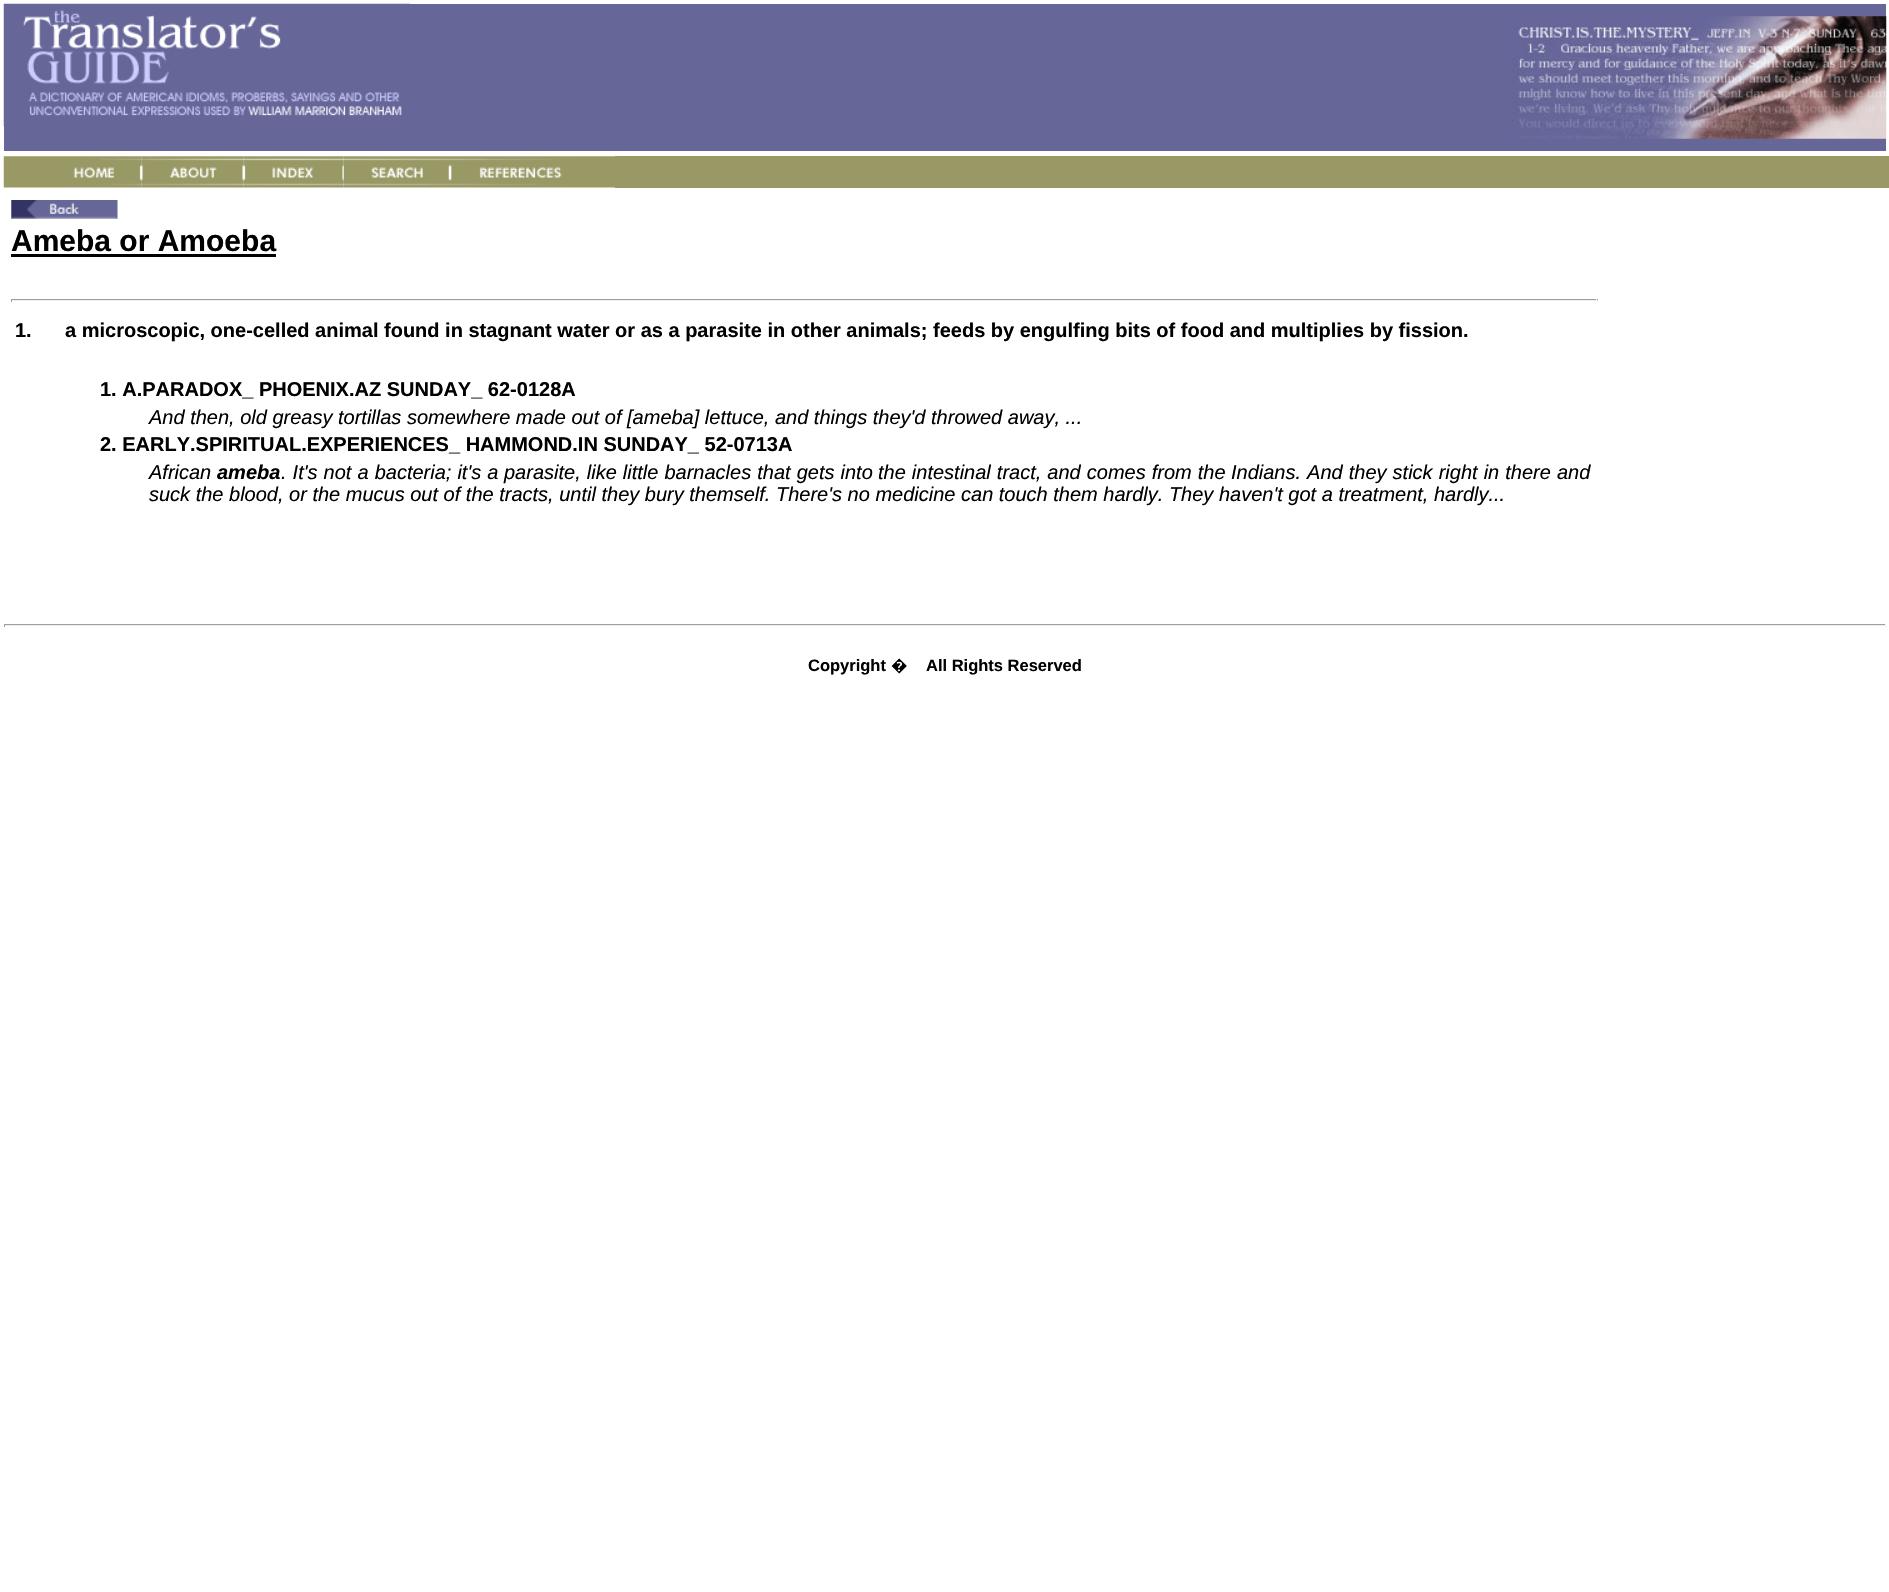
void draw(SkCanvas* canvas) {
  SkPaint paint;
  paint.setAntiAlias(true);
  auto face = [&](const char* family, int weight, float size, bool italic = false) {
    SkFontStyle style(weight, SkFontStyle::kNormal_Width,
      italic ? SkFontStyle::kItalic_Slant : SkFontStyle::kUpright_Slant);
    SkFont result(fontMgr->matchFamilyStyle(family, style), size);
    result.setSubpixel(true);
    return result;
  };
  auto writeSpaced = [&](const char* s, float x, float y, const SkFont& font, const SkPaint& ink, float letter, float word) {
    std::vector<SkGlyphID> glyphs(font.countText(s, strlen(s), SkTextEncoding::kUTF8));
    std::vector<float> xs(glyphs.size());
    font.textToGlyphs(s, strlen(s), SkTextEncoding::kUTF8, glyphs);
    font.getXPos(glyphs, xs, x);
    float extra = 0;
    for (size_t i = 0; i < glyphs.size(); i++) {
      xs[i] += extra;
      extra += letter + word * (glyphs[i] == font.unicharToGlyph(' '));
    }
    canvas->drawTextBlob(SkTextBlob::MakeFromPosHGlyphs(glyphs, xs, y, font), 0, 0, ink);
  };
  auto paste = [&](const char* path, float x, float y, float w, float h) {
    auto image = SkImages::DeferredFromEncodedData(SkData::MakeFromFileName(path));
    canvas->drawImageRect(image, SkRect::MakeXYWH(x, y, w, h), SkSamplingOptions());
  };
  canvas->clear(0xffffffff);
  paint.setColor(0xff666699);
  canvas->drawRect(SkRect::MakeXYWH(4, 4, 1882, 147), paint);
  paste("img/1.png", 3, 3, 407, 124);
  paste("img/2.png", 1511, 16, 376, 123);
  paste("img/3.png", 3, 156, 139, 32);
  paste("img/4.png", 141, 156, 103, 32);
  paste("img/5.png", 243, 156, 101, 32);
  paste("img/6.png", 343, 156, 107, 32);
  paste("img/7.png", 450, 156, 165, 32);
  paint.setColor(0xff999966);
  canvas->drawRect(SkRect::MakeXYWH(615, 156, 1274, 32), paint);
  paste("img/8.png", 11, 200, 107, 19);
  {
    const struct { float x, y, w, h; SkColor color; } items[] = {
      {11, 254, 265, 3, 0xff000000},
      {11, 299, 1587, 1, 0xff9f9f9f},
      {1596, 299, 1, 3, 0xffeeeeee},
      {11, 300, 1587, 1, 0xffeeeeee},
      {11, 299, 1, 3, 0xff9f9f9f},
      {4, 624, 1882, 1, 0xff9f9f9f},
      {1885, 624, 1, 3, 0xffeeeeee},
      {4, 625, 1882, 1, 0xffeeeeee},
      {4, 624, 1, 3, 0xff9f9f9f},
    };
    for (auto [x, y, w, h, color] : items) {
      paint.setColor(color);
      canvas->drawRect(SkRect::MakeXYWH(x, y, w, h), paint);
    }
  }
  auto f0 = face("Liberation Sans", 700, 30);
  paint.setColor(0xff000000);
  canvas->drawString("Ameba or Amoeba", 11, 251, f0, paint);
  auto f1 = face("Liberation Sans", 700, 20);
  {
    const struct { const char* s; float x, y; } items[] = {
      {"1.", 15, 337},
      {"a microscopic, one-celled animal found in stagnant water or as a parasite in other animals; feeds by engulfing bits of food and multiplies by fission.", 65, 337},
      {"1. A.PARADOX_ PHOENIX.AZ SUNDAY_ 62-0128A", 100, 396},
    };
    for (auto [s, x, y] : items) {
      canvas->drawString(s, x, y, f1, paint);
    }
  }
  auto f2 = face("Liberation Sans", 400, 20, true);
  canvas->drawString("And then, old greasy tortillas somewhere made out of [ameba] lettuce, and things they'd throwed away, ...", 149, 424, f2, paint);
  canvas->drawString("2. EARLY.SPIRITUAL.EXPERIENCES_ HAMMOND.IN SUNDAY_ 52-0713A", 100, 451, f1, paint);
  canvas->drawString("African", 149, 479, f2, paint);
  auto f3 = face("Liberation Sans", 700, 20, true);
  canvas->drawString("ameba", 217, 479, f3, paint);
  {
    const struct { const char* s; float x, y; } items[] = {
      {". It's not a bacteria; it's a", 281, 479},
      {"parasite, like little barnacles that gets into", 504, 479},
      {"the intestinal tract, and comes from the", 878, 479},
      {"Indians. And they stick right in there and", 1231, 479},
    };
    for (auto [s, x, y] : items) {
      writeSpaced(s, x, y, f2, paint, 0, 0.5f);
    }
  }
  canvas->drawString("suck the blood, or the mucus out of the tracts, until they bury themself. There's no medicine can touch them hardly. They haven't got a treatment, hardly...", 149, 501, f2, paint);
  auto f4 = face("Liberation Sans", 700, 16.5f);
  canvas->drawString("Copyright", 808, 671, f4, paint);
  auto f5 = face("Noto Sans", 700, 16.5f);
  canvas->drawString("�", 891, 671, f5, paint);
  canvas->drawString("All Rights Reserved", 926, 671, f4, paint);
}
